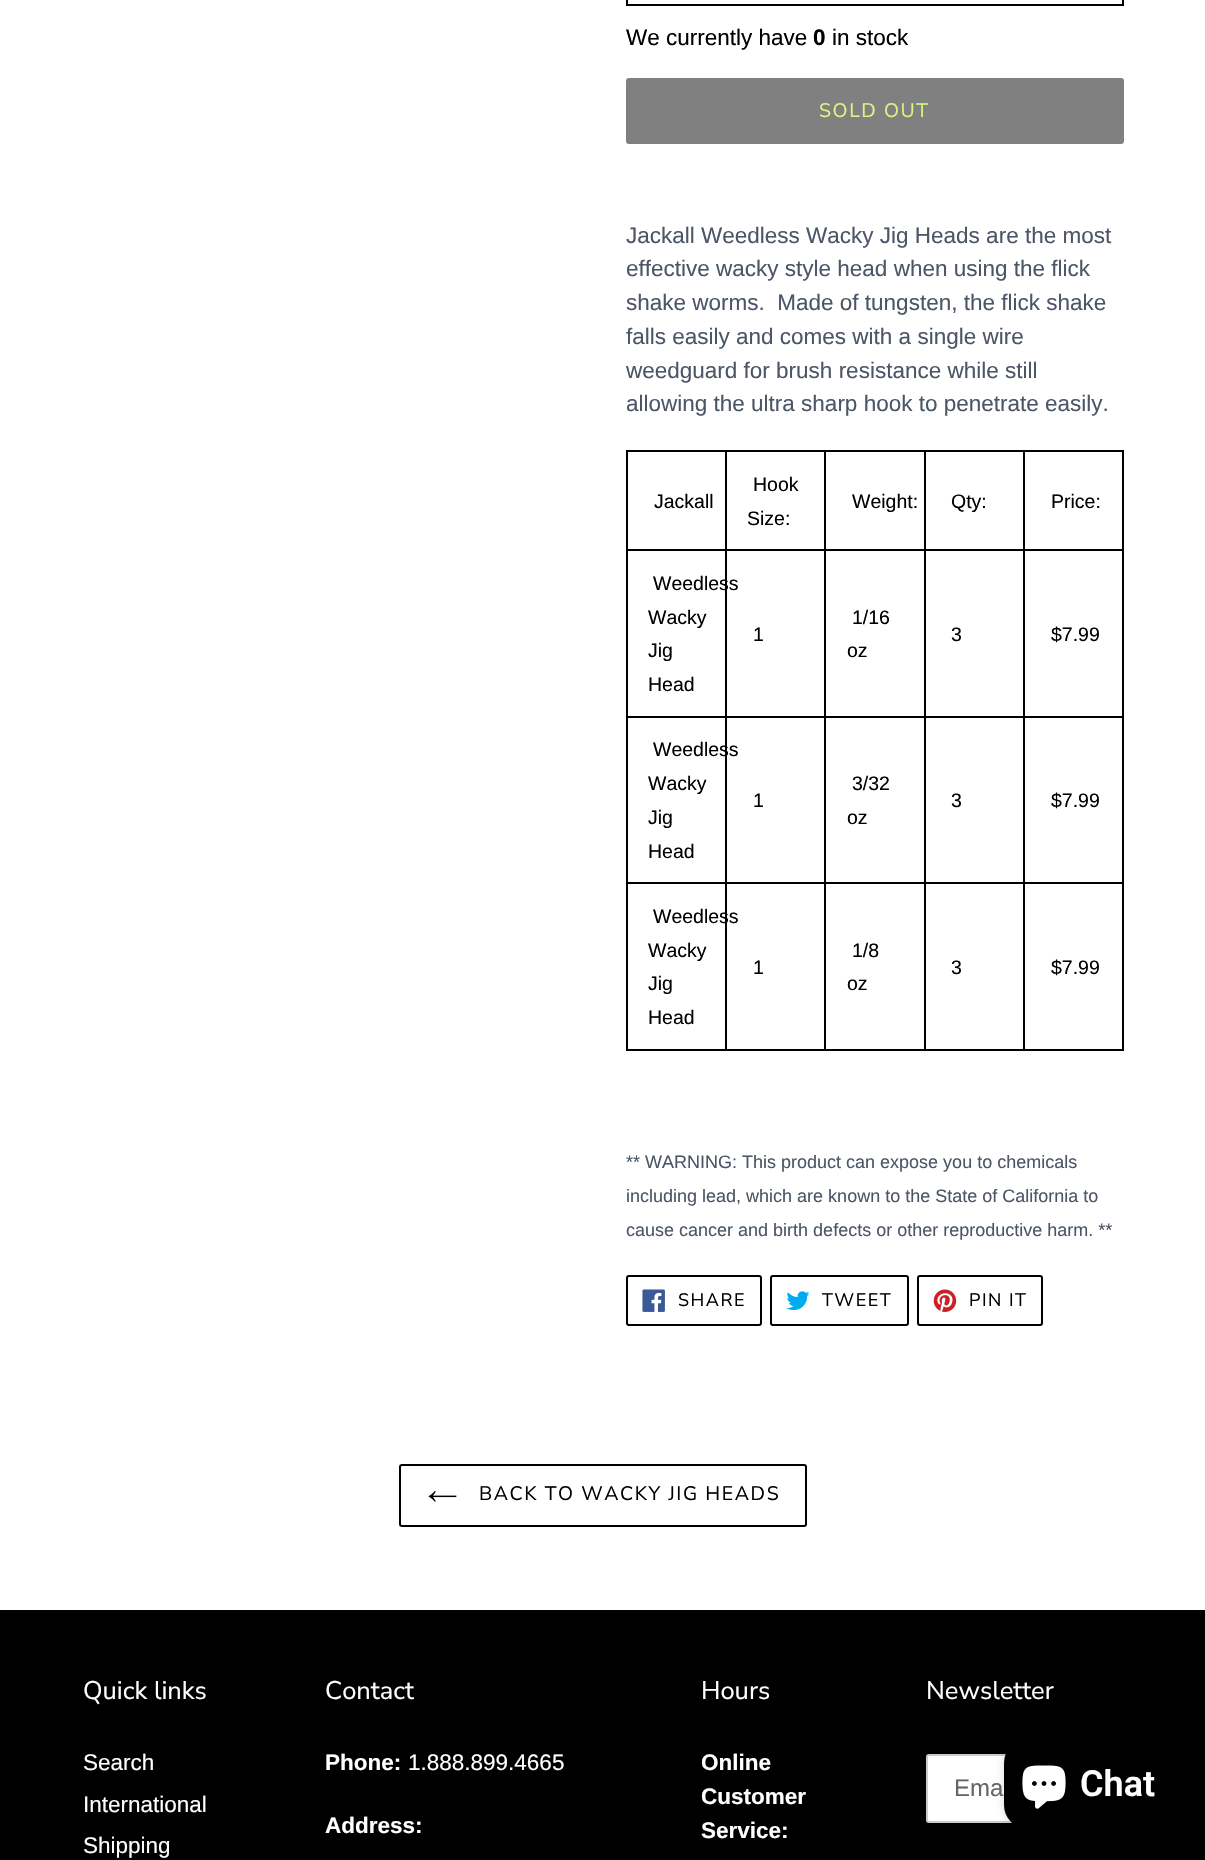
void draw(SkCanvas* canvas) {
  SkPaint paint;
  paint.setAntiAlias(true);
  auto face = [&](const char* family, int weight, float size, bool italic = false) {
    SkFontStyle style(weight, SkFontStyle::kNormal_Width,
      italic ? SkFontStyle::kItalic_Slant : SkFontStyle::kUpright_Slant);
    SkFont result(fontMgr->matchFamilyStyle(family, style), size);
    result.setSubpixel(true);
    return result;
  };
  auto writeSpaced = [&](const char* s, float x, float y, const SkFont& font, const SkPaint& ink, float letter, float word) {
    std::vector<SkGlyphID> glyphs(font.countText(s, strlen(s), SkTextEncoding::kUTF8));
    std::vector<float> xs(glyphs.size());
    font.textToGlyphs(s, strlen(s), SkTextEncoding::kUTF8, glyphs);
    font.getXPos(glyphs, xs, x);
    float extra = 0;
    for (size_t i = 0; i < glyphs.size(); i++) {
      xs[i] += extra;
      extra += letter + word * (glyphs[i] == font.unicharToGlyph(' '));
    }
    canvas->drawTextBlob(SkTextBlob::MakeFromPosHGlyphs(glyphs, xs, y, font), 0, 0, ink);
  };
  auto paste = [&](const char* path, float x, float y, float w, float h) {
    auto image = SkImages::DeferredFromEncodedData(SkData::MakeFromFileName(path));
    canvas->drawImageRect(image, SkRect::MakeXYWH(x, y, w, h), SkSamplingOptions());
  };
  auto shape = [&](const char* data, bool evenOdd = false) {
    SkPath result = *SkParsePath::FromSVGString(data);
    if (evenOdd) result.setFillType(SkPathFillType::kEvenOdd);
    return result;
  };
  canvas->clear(0xffffffff);
  paint.setStroke(true);
  paint.setStrokeWidth(2);
  paint.setColor(0xff000000);
  canvas->drawRect(SkRect::MakeXYWH(627, -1, 496, 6), paint);
  paint.setStroke(false);
  paint.setColor(0xff808080);
  canvas->drawRoundRect(SkRect::MakeXYWH(626, 78, 498, 66), 3, 3, paint);
  {
    const struct { float x, y, w, h; SkColor color; } items[] = {
      {1023, 450, 101, 2, 0xff000000},
      {1023, 549, 101, 2, 0xff000000},
      {1023, 716, 101, 2, 0xff000000},
      {1023, 882, 101, 2, 0xff000000},
      {1122, 882, 2, 168, 0xff000000},
      {1023, 1049, 101, 2, 0xff000000},
      {1023, 882, 2, 168, 0xff000000},
      {924, 882, 101, 2, 0xff000000},
      {1023, 716, 2, 168, 0xff000000},
      {924, 716, 101, 2, 0xff000000},
      {1023, 549, 2, 168, 0xff000000},
      {924, 549, 101, 2, 0xff000000},
      {1023, 450, 2, 101, 0xff000000},
      {924, 450, 101, 2, 0xff000000},
      {924, 1049, 101, 2, 0xff000000},
      {924, 882, 2, 168, 0xff000000},
      {824, 882, 102, 2, 0xff000000},
      {924, 716, 2, 168, 0xff000000},
      {824, 716, 102, 2, 0xff000000},
      {924, 549, 2, 168, 0xff000000},
      {824, 549, 102, 2, 0xff000000},
      {924, 450, 2, 101, 0xff000000},
      {824, 450, 102, 2, 0xff000000},
      {824, 1049, 102, 2, 0xff000000},
      {824, 882, 2, 168, 0xff000000},
      {725, 882, 100, 2, 0xff000000},
      {824, 716, 2, 168, 0xff000000},
      {725, 716, 100, 2, 0xff000000},
      {824, 549, 2, 168, 0xff000000},
      {725, 549, 100, 2, 0xff000000},
      {824, 450, 2, 101, 0xff000000},
      {725, 450, 100, 2, 0xff000000},
      {725, 1049, 100, 2, 0xff000000},
      {725, 882, 2, 168, 0xff000000},
      {626, 882, 100, 2, 0xff000000},
      {725, 716, 2, 168, 0xff000000},
      {626, 716, 100, 2, 0xff000000},
      {725, 549, 2, 168, 0xff000000},
      {626, 549, 100, 2, 0xff000000},
      {725, 450, 2, 101, 0xff000000},
      {626, 450, 100, 2, 0xff000000},
      {626, 1049, 100, 2, 0xff000000},
      {626, 882, 2, 168, 0xff000000},
      {626, 716, 2, 168, 0xff000000},
      {626, 549, 2, 168, 0xff000000},
      {626, 450, 2, 101, 0xff000000},
      {1122, 716, 2, 168, 0xff000000},
      {1122, 549, 2, 168, 0xff000000},
      {1122, 450, 2, 101, 0xff000000},
    };
    for (auto [x, y, w, h, color] : items) {
      paint.setColor(color);
      canvas->drawRect(SkRect::MakeXYWH(x, y, w, h), paint);
    }
  }
  paint.setStroke(true);
  canvas->drawRoundRect(SkRect::MakeXYWH(627, 1276, 134, 49), 2, 2, paint);
  paste("img/1.png", 642, 1289, 23, 23);
  canvas->drawRoundRect(SkRect::MakeXYWH(771, 1276, 137, 49), 2, 2, paint);
  paste("img/2.png", 786, 1291, 24, 20);
  canvas->drawRoundRect(SkRect::MakeXYWH(918, 1276, 124, 49), 2, 2, paint);
  paste("img/3.png", 933, 1289, 24, 23);
  canvas->drawRoundRect(SkRect::MakeXYWH(400, 1465, 406, 61), 2, 2, paint);
  paste("img/4.png", 428, 1491, 29, 11);
  paint.setStroke(false);
  canvas->drawRect(SkRect::MakeXYWH(0, 1610, 1205, 250), paint);
  paint.setColor(0xffffffff);
  canvas->drawPath(shape("M929 1755H1123V1822H929C928 1822 927 1821 927 1820V1757C927 1756 928 1755 929 1755Z"), paint);
  paint.setStroke(true);
  paint.setColor(0xffcccccc);
  canvas->drawPath(shape("M929 1755H1123V1822H929C928 1822 927 1821 927 1820V1757C927 1756 928 1755 929 1755Z"), paint);
  paint.setStroke(false);
  paint.setColor(0x26000000);
  paint.setMaskFilter(SkMaskFilter::MakeBlur(kNormal_SkBlurStyle, 4));
  canvas->drawRoundRect(SkRect::MakeXYWH(1004, 1739, 169, 90), 24, 24, paint);
  paint.setMaskFilter(nullptr);
  paint.setColor(0xff000000);
  canvas->drawRoundRect(SkRect::MakeXYWH(1004, 1739, 169, 90), 24, 24, paint);
  paste("img/5.png", 1022, 1765, 44, 44);
  auto f0 = face("Liberation Sans", 400, 22.5f);
  canvas->drawString("We currently have", 626, 45, f0, paint);
  auto f1 = face("Liberation Sans", 700, 22.5f);
  canvas->drawString("0", 813, 45, f1, paint);
  canvas->drawString("in stock", 832, 45, f0, paint);
  auto f2 = face("Nunito Sans", 400, 19.5f);
  paint.setColor(0xffd8f583);
  writeSpaced("SOLD OUT", 819, 117, f2, paint, 1.6f, 0);
  paint.setColor(0xff4c5667);
  {
    const struct { const char* s; float x, y; } items[] = {
      {"Jackall Weedless Wacky Jig Heads are the most", 626, 243},
      {"effective wacky style head when using the flick", 626, 276},
      {"shake worms.  Made of tungsten, the flick shake", 626, 310},
      {"falls easily and comes with a single wire", 626, 344},
      {"weedguard for brush resistance while still", 626, 378},
      {"allowing the ultra sharp hook to penetrate easily.", 626, 411},
    };
    for (auto [s, x, y] : items) {
      canvas->drawString(s, x, y, f0, paint);
    }
  }
  auto f3 = face("Liberation Sans", 400, 19.5f);
  paint.setColor(0xff000000);
  {
    const struct { const char* s; float x, y; } items[] = {
      {"Jackall", 654, 508},
      {"Hook", 753, 491},
      {"Size:", 747, 525},
      {"Weight:", 852, 508},
      {"Qty:", 951, 508},
      {"Price:", 1051, 508},
      {"Weedless", 653, 590},
      {"Wacky", 648, 624},
      {"Jig", 648, 657},
      {"Head", 648, 691},
      {"1", 753, 641},
      {"1/16", 852, 624},
      {"oz", 847, 657},
      {"3", 951, 641},
      {"$7.99", 1051, 641},
      {"Weedless", 653, 756},
      {"Wacky", 648, 790},
      {"Jig", 648, 824},
      {"Head", 648, 858},
      {"1", 753, 807},
      {"3/32", 852, 790},
      {"oz", 847, 824},
      {"3", 951, 807},
      {"$7.99", 1051, 807},
      {"Weedless", 653, 923},
      {"Wacky", 648, 957},
      {"Jig", 648, 990},
      {"Head", 648, 1024},
      {"1", 753, 974},
      {"1/8", 852, 957},
      {"oz", 847, 990},
      {"3", 951, 974},
      {"$7.99", 1051, 974},
    };
    for (auto [s, x, y] : items) {
      canvas->drawString(s, x, y, f3, paint);
    }
  }
  auto f4 = face("Liberation Sans", 400, 18);
  paint.setColor(0xff4c5667);
  {
    const struct { const char* s; float x, y; } items[] = {
      {"** WARNING: This product can expose you to chemicals", 626, 1168},
      {"including lead, which are known to the State of California to", 626, 1202},
      {"cause cancer and birth defects or other reproductive harm. **", 626, 1236},
    };
    for (auto [s, x, y] : items) {
      canvas->drawString(s, x, y, f4, paint);
    }
  }
  auto f5 = face("Nunito Sans", 400, 18);
  paint.setColor(0xff000000);
  {
    const struct { const char* s; float x, y; } items[] = {
      {"SHARE", 678, 1306},
      {"TWEET", 822, 1306},
      {"PIN IT", 969, 1306},
    };
    for (auto [s, x, y] : items) {
      writeSpaced(s, x, y, f5, paint, 1.5f, 0);
    }
  }
  writeSpaced("BACK TO WACKY JIG HEADS", 479, 1500, f2, paint, 1.6f, 0);
  auto f6 = face("Nunito Sans", 400, 25.5f);
  paint.setColor(0xffffffff);
  canvas->drawString("Quick links", 83, 1699, f6, paint);
  {
    const struct { const char* s; float x, y; } items[] = {
      {"Search", 83, 1770},
      {"International", 83, 1812},
      {"Shipping", 83, 1853},
    };
    for (auto [s, x, y] : items) {
      canvas->drawString(s, x, y, f0, paint);
    }
  }
  canvas->drawString("Contact", 325, 1699, f6, paint);
  canvas->drawString("Phone:", 325, 1770, f1, paint);
  canvas->drawString("1.888.899.4665", 408, 1770, f0, paint);
  canvas->drawString("Address:", 325, 1833, f1, paint);
  canvas->drawString("Hours", 701, 1699, f6, paint);
  {
    const struct { const char* s; float x, y; } items[] = {
      {"Online", 701, 1770},
      {"Customer", 701, 1804},
      {"Service:", 701, 1838},
    };
    for (auto [s, x, y] : items) {
      canvas->drawString(s, x, y, f1, paint);
    }
  }
  canvas->drawString("Newsletter", 926, 1699, f6, paint);
  auto f7 = face("Liberation Sans", 400, 24);
  paint.setColor(0xff666666);
  canvas->drawString("Ema", 954, 1796, f7, paint);
  auto f8 = face("Roboto", 600, 36);
  paint.setColor(0xffffffff);
  canvas->drawString("Chat", 1080, 1796, f8, paint);
}
